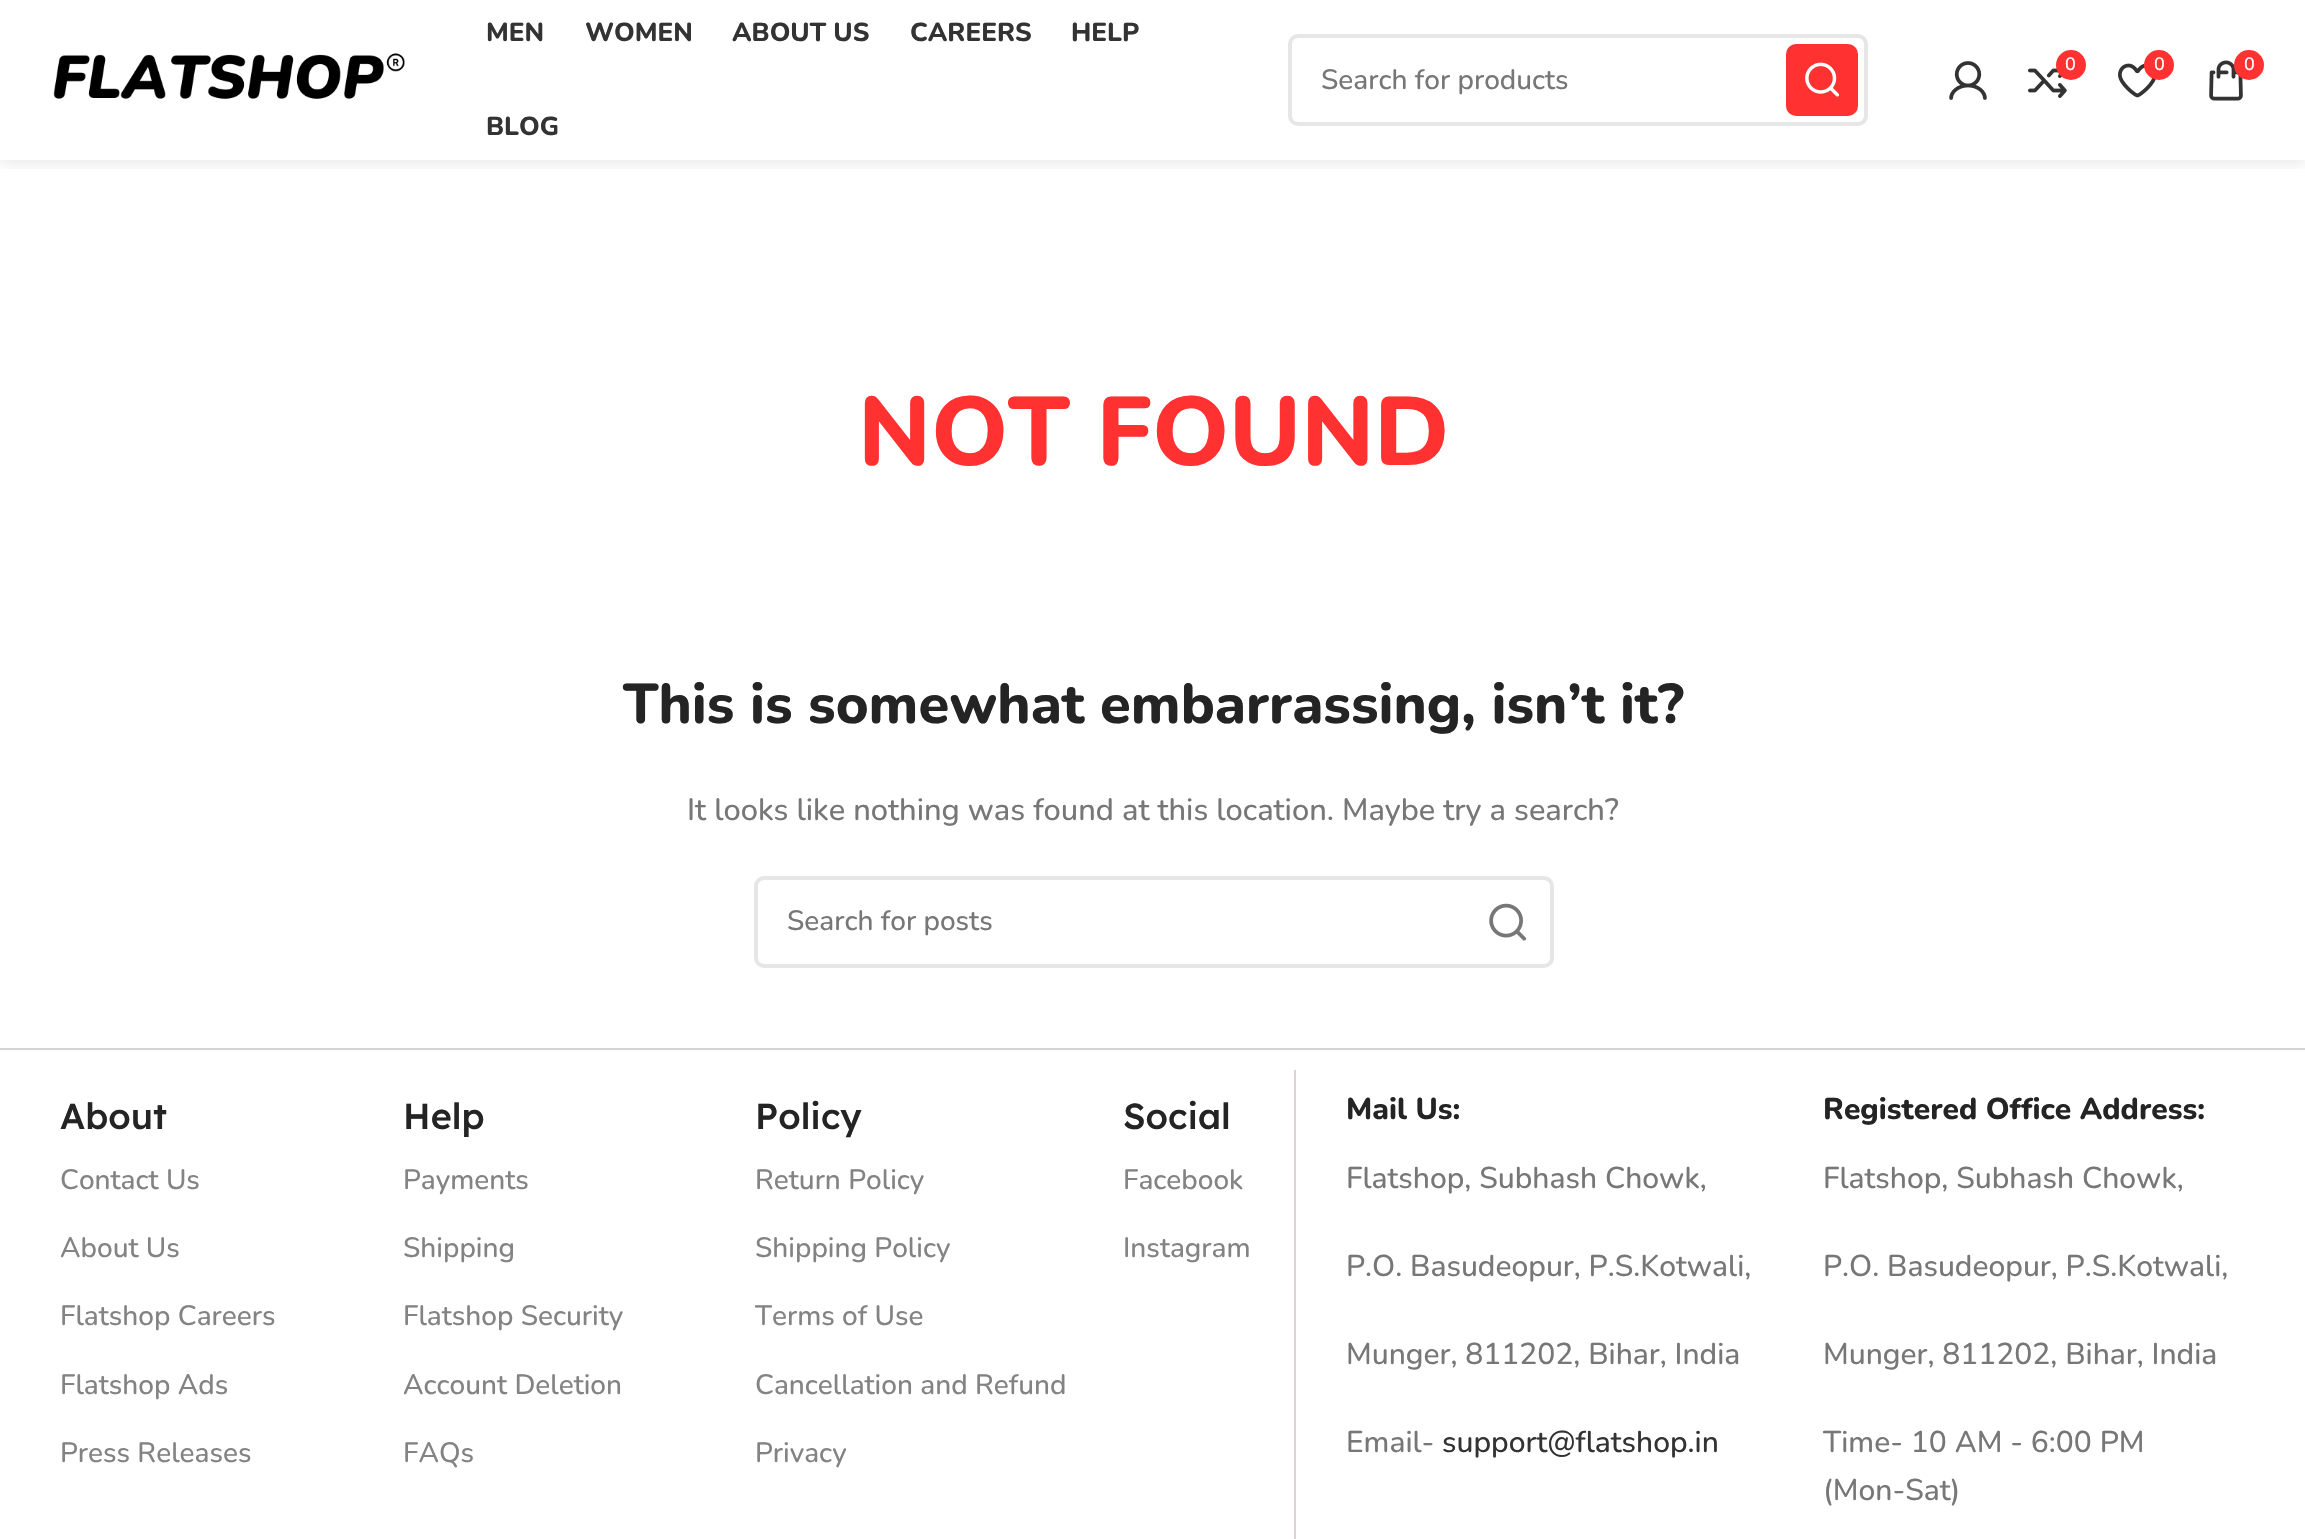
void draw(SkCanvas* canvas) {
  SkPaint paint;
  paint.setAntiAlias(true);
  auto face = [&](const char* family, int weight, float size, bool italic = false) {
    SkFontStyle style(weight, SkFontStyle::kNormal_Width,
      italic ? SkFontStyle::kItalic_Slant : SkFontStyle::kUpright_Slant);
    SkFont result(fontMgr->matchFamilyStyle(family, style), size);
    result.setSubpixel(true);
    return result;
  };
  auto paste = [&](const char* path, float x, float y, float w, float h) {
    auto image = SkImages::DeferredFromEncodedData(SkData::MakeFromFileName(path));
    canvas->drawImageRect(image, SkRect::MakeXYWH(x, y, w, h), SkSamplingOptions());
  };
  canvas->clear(0xffffffff);
  canvas->save();
  canvas->clipRect(SkRect::MakeXYWH(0, 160, 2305, 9));
  paint.setColor(0x1a000000);
  paint.setMaskFilter(SkMaskFilter::MakeBlur(kNormal_SkBlurStyle, 8));
  canvas->drawRect(SkRect::MakeXYWH(0, 2, 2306, 160), paint);
  paint.setMaskFilter(nullptr);
  canvas->restore();
  paste("img/1.png", 53, 53, 352, 46);
  paste("img/2.png", 1949, 61, 38, 39);
  paste("img/3.png", 2028, 68, 39, 30);
  paint.setColor(0xffff3131);
  canvas->drawCircle(2071, 65, 15, paint);
  paste("img/4.png", 2118, 63, 38, 35);
  canvas->drawCircle(2159, 65, 15, paint);
  paste("img/5.png", 2209, 60, 34, 41);
  canvas->drawCircle(2249, 65, 15, paint);
  paint.setStroke(true);
  paint.setStrokeWidth(4);
  paint.setColor(0xffe6e6e6);
  canvas->drawRoundRect(SkRect::MakeXYWH(1290, 36, 576, 88), 8, 8, paint);
  paint.setStroke(false);
  paint.setColor(0xffff3131);
  canvas->drawRoundRect(SkRect::MakeXYWH(1786, 44, 72, 72), 10, 10, paint);
  paste("img/6.png", 1805, 62, 35, 35);
  paint.setStroke(true);
  paint.setColor(0xffe6e6e6);
  canvas->drawRoundRect(SkRect::MakeXYWH(756, 878, 796, 88), 8, 8, paint);
  paste("img/7.png", 1489, 903, 38, 38);
  paint.setStroke(false);
  paint.setColor(0xffd9d4d4);
  canvas->drawRect(SkRect::MakeXYWH(0, 1048, 2305, 2), paint);
  canvas->drawRect(SkRect::MakeXYWH(1294, 1070, 2, 469), paint);
  auto f0 = face("Nunito", 800, 26);
  paint.setColor(0xff333333);
  {
    const struct { const char* s; float x, y; } items[] = {
      {"MEN", 486, 41},
      {"WOMEN", 585, 41},
      {"ABOUT US", 732, 41},
      {"CAREERS", 910, 41},
      {"HELP", 1071, 41},
      {"BLOG", 486, 135},
    };
    for (auto [s, x, y] : items) {
      canvas->drawString(s, x, y, f0, paint);
    }
  }
  auto f1 = face("Nunito", 500, 18);
  paint.setColor(0xffffffff);
  {
    const struct { const char* s; float x, y; } items[] = {
      {"0", 2065, 70},
      {"0", 2154, 70},
      {"0", 2244, 70},
    };
    for (auto [s, x, y] : items) {
      canvas->drawString(s, x, y, f1, paint);
    }
  }
  auto f2 = face("Nunito", 500, 28);
  paint.setColor(0xff777777);
  canvas->drawString("Search for products", 1321, 89, f2, paint);
  auto f3 = face("Nunito", 800, 97);
  paint.setColor(0xffff3131);
  canvas->drawString("NOT FOUND", 858, 465, f3, paint);
  auto f4 = face("Nunito", 800, 56);
  paint.setColor(0xff242424);
  canvas->drawString("This is somewhat embarrassing, isn’t it?", 623, 723, f4, paint);
  auto f5 = face("Nunito", 500, 30.8f);
  paint.setColor(0xff777777);
  canvas->drawString("It looks like nothing was found at this location. Maybe try a search?", 687, 820, f5, paint);
  canvas->drawString("Search for posts", 787, 930, f2, paint);
  auto f6 = face("Lexend Deca", 500, 36);
  paint.setColor(0xff242424);
  canvas->drawString("About", 60, 1129, f6, paint);
  paint.setColor(0xff838383);
  {
    const struct { const char* s; float x, y; } items[] = {
      {"Contact Us", 60, 1189},
      {"About Us", 60, 1257},
      {"Flatshop Careers", 60, 1325},
      {"Flatshop Ads", 60, 1394},
      {"Press Releases", 60, 1462},
    };
    for (auto [s, x, y] : items) {
      canvas->drawString(s, x, y, f2, paint);
    }
  }
  paint.setColor(0xff242424);
  canvas->drawString("Help", 403, 1129, f6, paint);
  paint.setColor(0xff838383);
  {
    const struct { const char* s; float x, y; } items[] = {
      {"Payments", 403, 1189},
      {"Shipping", 403, 1257},
      {"Flatshop Security", 403, 1325},
      {"Account Deletion", 403, 1394},
      {"FAQs", 403, 1462},
    };
    for (auto [s, x, y] : items) {
      canvas->drawString(s, x, y, f2, paint);
    }
  }
  paint.setColor(0xff242424);
  canvas->drawString("Policy", 755, 1129, f6, paint);
  paint.setColor(0xff838383);
  {
    const struct { const char* s; float x, y; } items[] = {
      {"Return Policy", 755, 1189},
      {"Shipping Policy", 755, 1257},
      {"Terms of Use", 755, 1325},
      {"Cancellation and Refund", 755, 1394},
      {"Privacy", 755, 1462},
    };
    for (auto [s, x, y] : items) {
      canvas->drawString(s, x, y, f2, paint);
    }
  }
  paint.setColor(0xff242424);
  canvas->drawString("Social", 1123, 1129, f6, paint);
  paint.setColor(0xff838383);
  canvas->drawString("Facebook", 1123, 1189, f2, paint);
  canvas->drawString("Instagram", 1123, 1257, f2, paint);
  auto f7 = face("Nunito", 800, 30);
  paint.setColor(0xff242424);
  canvas->drawString("Mail Us:", 1346, 1119, f7, paint);
  auto f8 = face("Nunito", 500, 30);
  paint.setColor(0xff777777);
  {
    const struct { const char* s; float x, y; } items[] = {
      {"Flatshop, Subhash Chowk,", 1346, 1188},
      {"P.O. Basudeopur, P.S.Kotwali,", 1346, 1276},
      {"Munger, 811202, Bihar, India", 1346, 1364},
      {"Email-", 1346, 1452},
    };
    for (auto [s, x, y] : items) {
      canvas->drawString(s, x, y, f8, paint);
    }
  }
  paint.setColor(0xff333333);
  canvas->drawString("support@flatshop.in", 1442, 1452, f8, paint);
  paint.setColor(0xff242424);
  canvas->drawString("Registered Office Address:", 1823, 1119, f7, paint);
  paint.setColor(0xff777777);
  {
    const struct { const char* s; float x, y; } items[] = {
      {"Flatshop, Subhash Chowk,", 1823, 1188},
      {"P.O. Basudeopur, P.S.Kotwali,", 1823, 1276},
      {"Munger, 811202, Bihar, India", 1823, 1364},
      {"Time- 10 AM - 6:00 PM", 1823, 1452},
      {"(Mon-Sat)", 1823, 1500},
    };
    for (auto [s, x, y] : items) {
      canvas->drawString(s, x, y, f8, paint);
    }
  }
}
